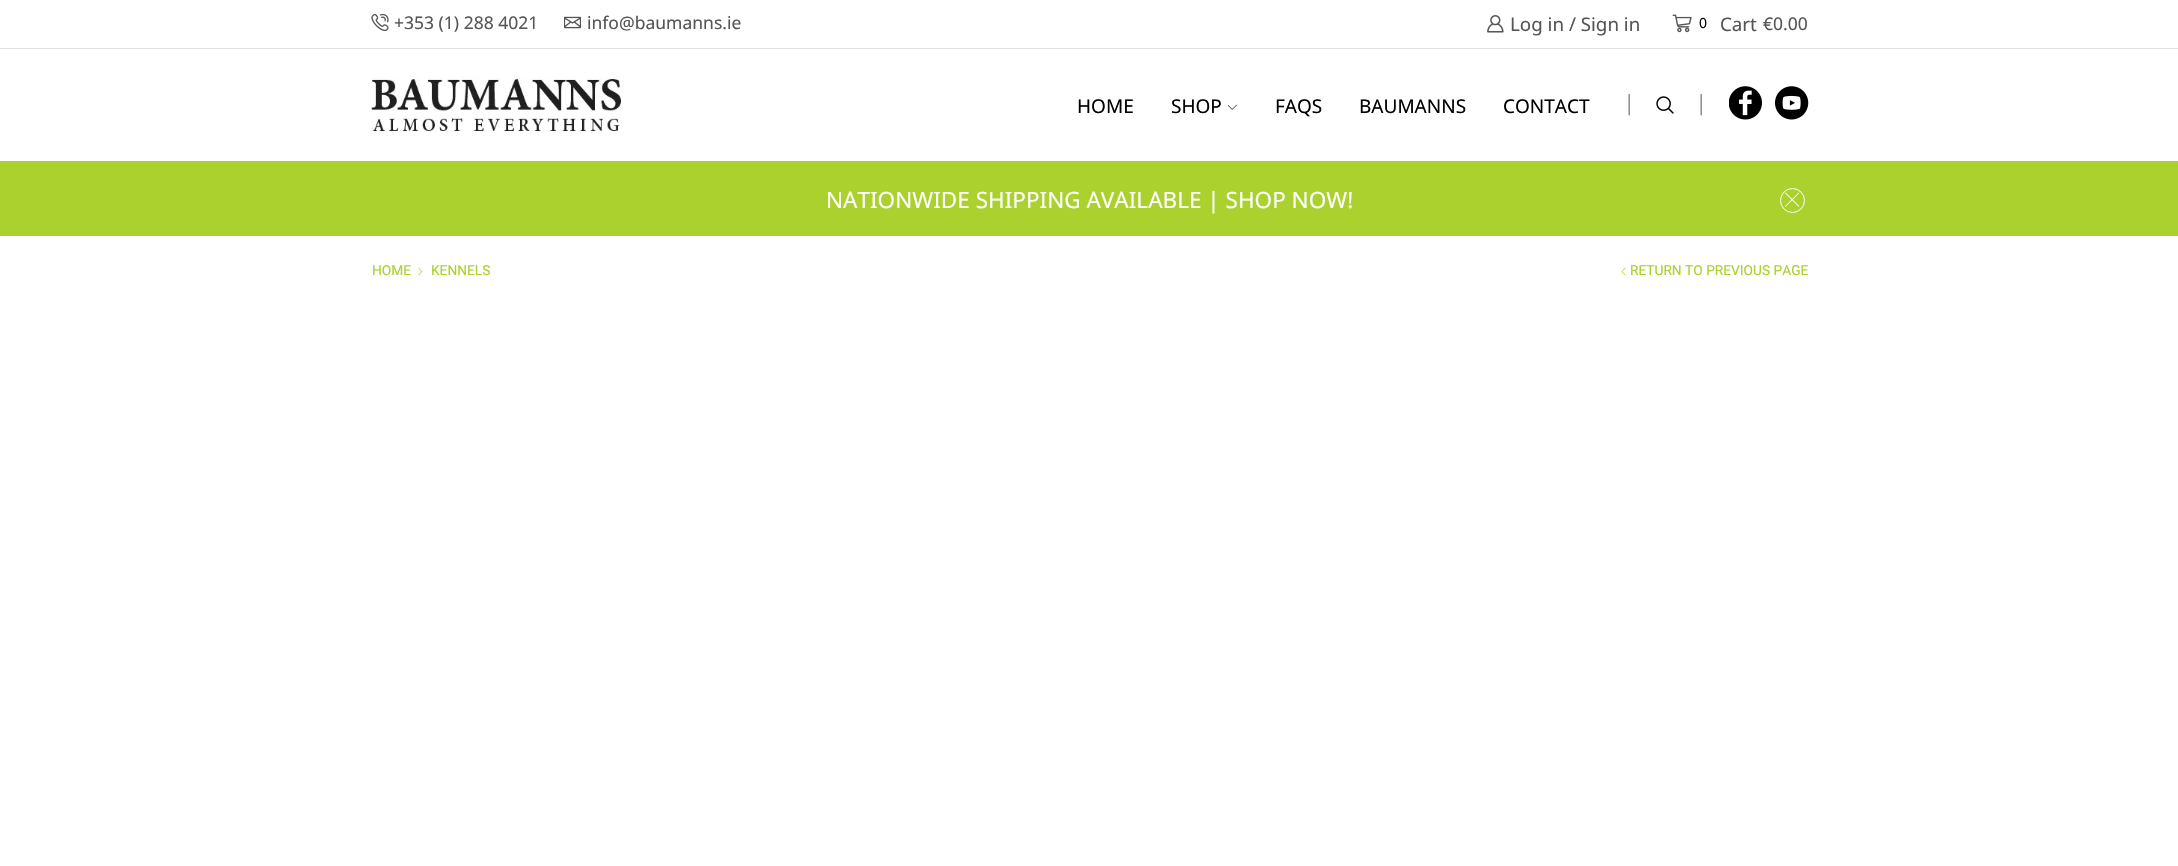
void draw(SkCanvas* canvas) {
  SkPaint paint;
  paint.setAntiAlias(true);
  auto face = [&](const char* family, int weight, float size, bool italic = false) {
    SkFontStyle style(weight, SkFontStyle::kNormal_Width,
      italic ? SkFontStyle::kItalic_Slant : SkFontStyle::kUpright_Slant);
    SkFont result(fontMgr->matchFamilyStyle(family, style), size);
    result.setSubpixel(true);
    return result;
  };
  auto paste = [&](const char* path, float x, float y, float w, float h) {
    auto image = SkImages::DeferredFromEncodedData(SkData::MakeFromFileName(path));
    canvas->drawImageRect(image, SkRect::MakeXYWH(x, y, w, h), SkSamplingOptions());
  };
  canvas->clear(0xffffffff);
  paint.setColor(0xffe1e1e1);
  canvas->drawRect(SkRect::MakeXYWH(0, 48, 2178, 1), paint);
  paste("img/1.png", 371, 14, 18, 17);
  paste("img/2.png", 564, 16, 17, 13);
  paste("img/3.png", 1487, 15, 17, 18);
  paste("img/4.png", 1672, 14, 20, 19);
  paste("img/5.png", 371, 77, 252, 56);
  paste("img/6.png", 1228, 104, 9, 6);
  paste("img/7.png", 1656, 96, 18, 18);
  paste("img/8.png", 1729, 86, 33, 34);
  paste("img/9.png", 1775, 86, 34, 34);
  paint.setColor(0xffabd12e);
  canvas->drawRect(SkRect::MakeXYWH(0, 161, 2178, 75), paint);
  paint.setStroke(true);
  paint.setStrokeWidth(1);
  paint.setColor(0xffffffff);
  canvas->drawCircle(1792.5f, 200.5f, 12, paint);
  paste("img/10.png", 1785, 192, 15, 15);
  paste("img/11.png", 418, 267, 5, 9);
  paste("img/12.png", 1621, 267, 5, 9);
  auto f0 = face("Noto Sans", 400, 17.5f);
  paint.setStroke(false);
  paint.setColor(0xff555555);
  canvas->drawString("+353 (1) 288 4021", 394, 29, f0, paint);
  canvas->drawString("info@baumanns.ie", 587, 29, f0, paint);
  auto f1 = face("Noto Sans", 400, 18.75f);
  canvas->drawString("Log in / Sign in", 1510, 31, f1, paint);
  auto f2 = face("Noto Sans", 400, 14);
  paint.setColor(0xff000000);
  canvas->drawString("0", 1699, 28, f2, paint);
  paint.setColor(0xff555555);
  canvas->drawString("Cart", 1720, 31, f1, paint);
  canvas->drawString("€0.00", 1763, 30, f0, paint);
  auto f3 = face("Noto Sans", 400, 19);
  paint.setColor(0xff000000);
  {
    const struct { const char* s; float x, y; } items[] = {
      {"HOME", 1077, 113},
      {"SHOP", 1171, 113},
      {"FAQS", 1275, 113},
      {"BAUMANNS", 1359, 113},
      {"CONTACT", 1503, 113},
    };
    for (auto [s, x, y] : items) {
      canvas->drawString(s, x, y, f3, paint);
    }
  }
  auto f4 = face("Liberation Serif", 400, 17.5f);
  paint.setColor(0xff808080);
  canvas->drawString("│", 1623, 110, f4, paint);
  canvas->drawString("│", 1695, 110, f4, paint);
  auto f5 = face("Noto Sans", 400, 22.5f);
  paint.setColor(0xffffffff);
  canvas->drawString("NATIONWIDE SHIPPING AVAILABLE | SHOP NOW!", 826, 208, f5, paint);
  auto f6 = face("Roboto", 400, 13.75f);
  paint.setColor(0xffabd12e);
  {
    const struct { const char* s; float x, y; } items[] = {
      {"HOME", 372, 275},
      {"KENNELS", 431, 275},
      {"RETURN TO PREVIOUS PAGE", 1630, 275},
    };
    for (auto [s, x, y] : items) {
      canvas->drawString(s, x, y, f6, paint);
    }
  }
}
